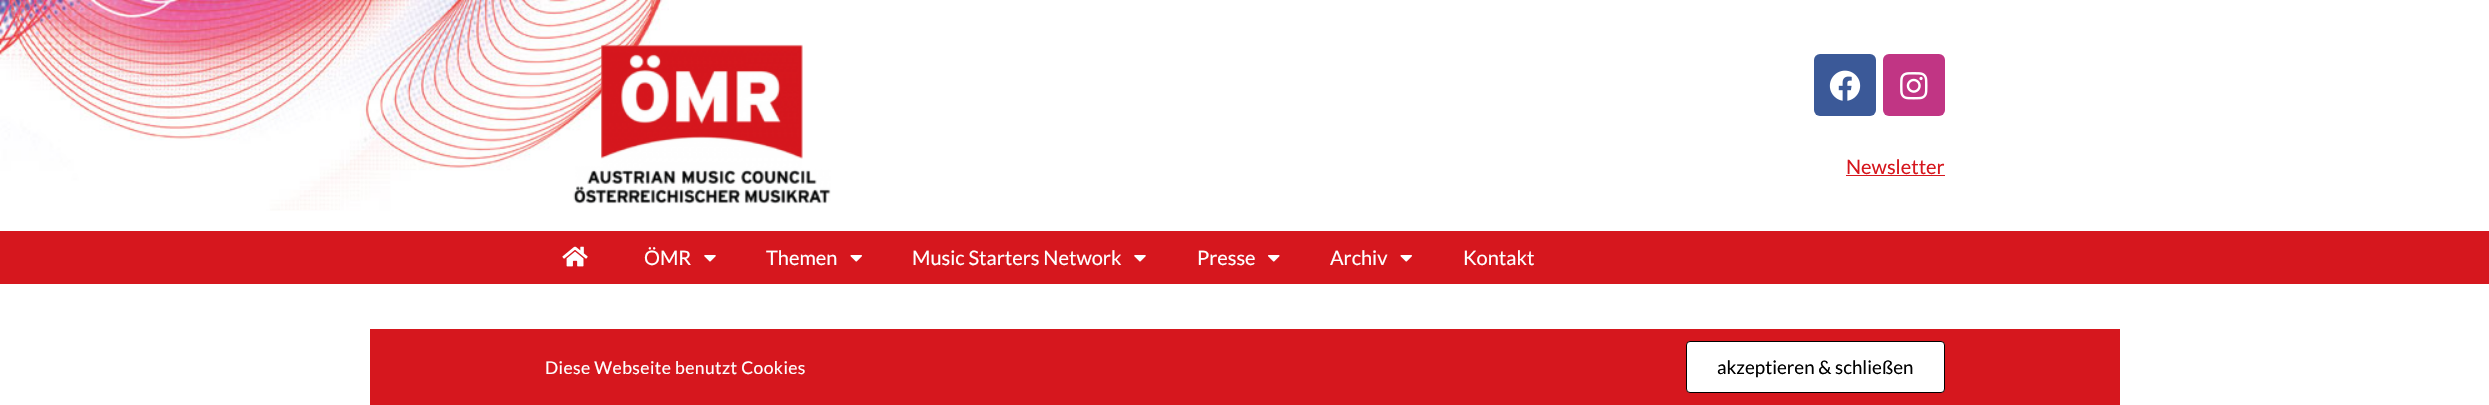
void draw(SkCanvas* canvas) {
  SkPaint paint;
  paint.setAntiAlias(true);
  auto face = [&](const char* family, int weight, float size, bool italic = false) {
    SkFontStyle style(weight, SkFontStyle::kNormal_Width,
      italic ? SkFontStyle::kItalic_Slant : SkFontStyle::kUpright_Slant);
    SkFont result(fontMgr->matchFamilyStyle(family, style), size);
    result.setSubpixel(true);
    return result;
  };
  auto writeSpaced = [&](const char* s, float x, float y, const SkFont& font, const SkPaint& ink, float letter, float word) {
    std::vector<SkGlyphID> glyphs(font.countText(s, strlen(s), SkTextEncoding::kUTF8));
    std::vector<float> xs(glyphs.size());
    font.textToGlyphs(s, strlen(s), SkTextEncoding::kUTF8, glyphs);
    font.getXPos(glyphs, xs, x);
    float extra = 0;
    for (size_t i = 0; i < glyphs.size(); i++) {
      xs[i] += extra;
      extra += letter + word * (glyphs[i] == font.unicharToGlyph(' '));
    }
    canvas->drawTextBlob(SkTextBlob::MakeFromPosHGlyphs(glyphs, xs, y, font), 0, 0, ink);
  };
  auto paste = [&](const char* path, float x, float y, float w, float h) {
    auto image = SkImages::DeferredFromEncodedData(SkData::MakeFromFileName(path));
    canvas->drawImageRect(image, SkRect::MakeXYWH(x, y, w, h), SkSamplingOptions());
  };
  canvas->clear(0xffffffff);
  paste("img/1.png", 0, 0, 669, 211);
  paste("img/2.png", 573, 44, 258, 160);
  paint.setColor(0xff3b5998);
  canvas->drawRoundRect(SkRect::MakeXYWH(1814, 54, 62, 62), 6, 6, paint);
  paste("img/3.png", 1829, 70, 32, 31);
  paint.setColor(0xffc13584);
  canvas->drawRoundRect(SkRect::MakeXYWH(1883, 54, 62, 62), 6, 6, paint);
  paste("img/4.png", 1900, 72, 28, 28);
  paint.setColor(0xffd6171e);
  canvas->drawRect(SkRect::MakeXYWH(1846, 175, 99, 1), paint);
  canvas->drawRect(SkRect::MakeXYWH(0, 231, 2489, 53), paint);
  paste("img/5.png", 562, 246, 26, 21);
  paste("img/6.png", 704, 255, 12, 7);
  paste("img/7.png", 850, 255, 12, 7);
  paste("img/6.png", 1134, 255, 12, 7);
  paste("img/8.png", 1268, 255, 12, 7);
  paste("img/7.png", 1400, 255, 12, 7);
  canvas->drawRect(SkRect::MakeXYWH(370, 329, 1750, 76), paint);
  paint.setColor(0xffffffff);
  canvas->drawRoundRect(SkRect::MakeXYWH(1686.5f, 341.5f, 258, 51), 3.5f, 3.5f, paint);
  paint.setStroke(true);
  paint.setStrokeWidth(1);
  paint.setColor(0xff000000);
  canvas->drawRoundRect(SkRect::MakeXYWH(1686.5f, 341.5f, 258, 51), 3.5f, 3.5f, paint);
  auto f0 = face("Lato", 400, 20);
  paint.setStroke(false);
  paint.setColor(0xffd6171e);
  canvas->drawString("Newsletter", 1846, 174, f0, paint);
  paint.setColor(0xffffffff);
  {
    const struct { const char* s; float x, y; } items[] = {
      {"ÖMR", 644, 265},
      {"Themen", 766, 265},
      {"Music Starters Network", 912, 265},
      {"Presse", 1197, 265},
      {"Archiv", 1330, 265},
      {"Kontakt", 1463, 265},
    };
    for (auto [s, x, y] : items) {
      canvas->drawString(s, x, y, f0, paint);
    }
  }
  auto f1 = face("Lato", 400, 17.5f);
  writeSpaced("Diese Webseite benutzt Cookies", 545, 374, f1, paint, 0.4f, 0);
  auto f2 = face("Lato", 400, 18.75f);
  paint.setColor(0xff000000);
  canvas->drawString("akzeptieren & schließen", 1717, 374, f2, paint);
}
